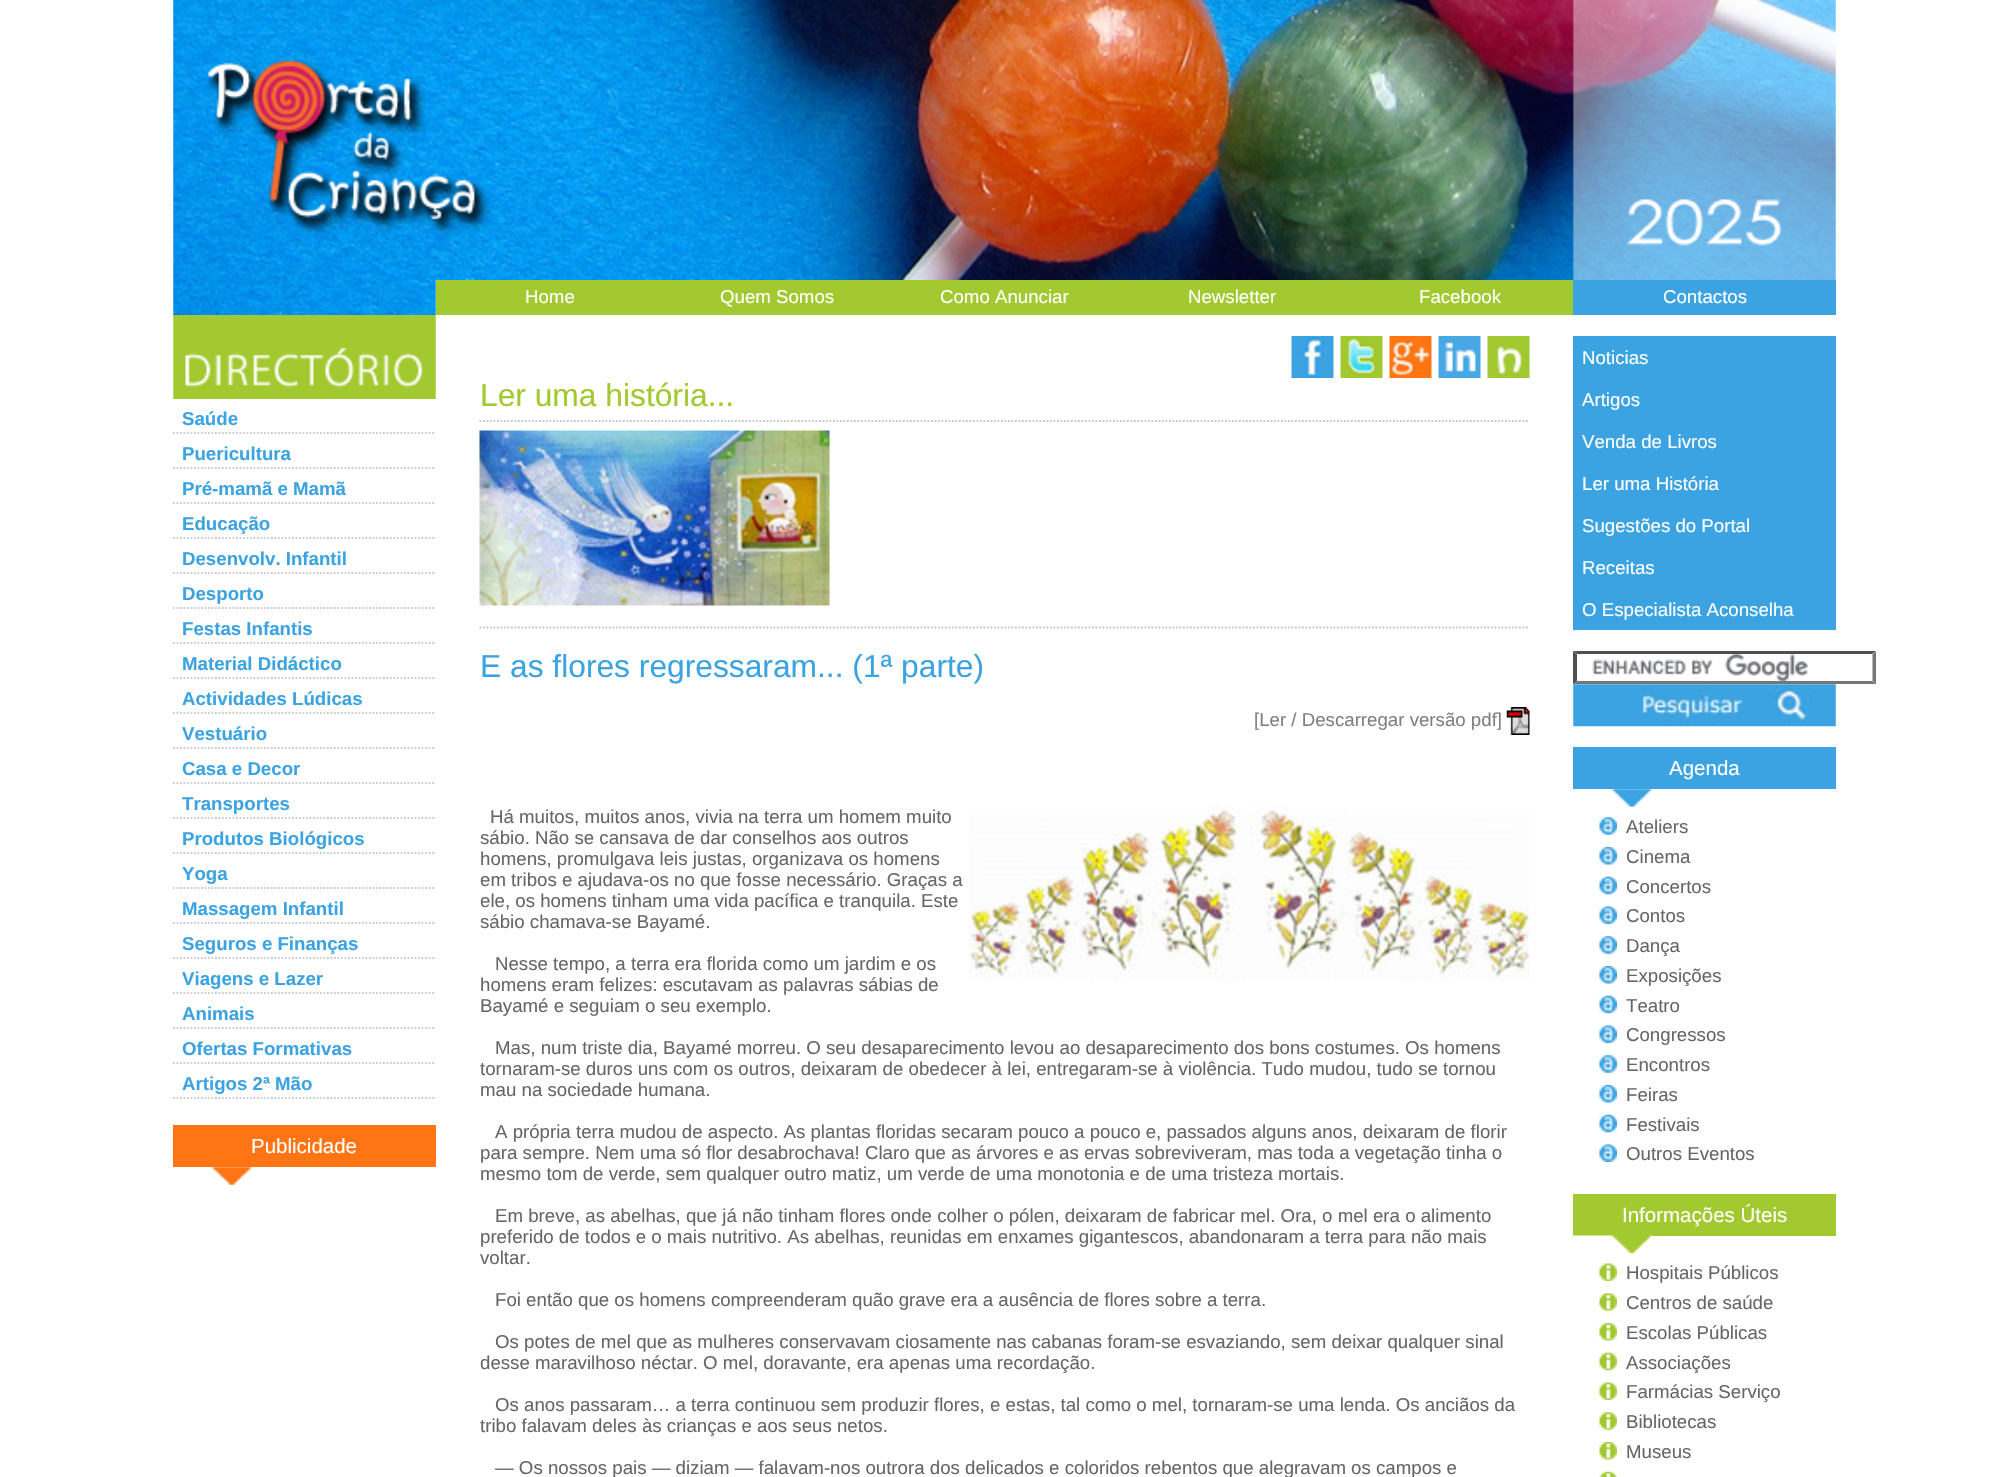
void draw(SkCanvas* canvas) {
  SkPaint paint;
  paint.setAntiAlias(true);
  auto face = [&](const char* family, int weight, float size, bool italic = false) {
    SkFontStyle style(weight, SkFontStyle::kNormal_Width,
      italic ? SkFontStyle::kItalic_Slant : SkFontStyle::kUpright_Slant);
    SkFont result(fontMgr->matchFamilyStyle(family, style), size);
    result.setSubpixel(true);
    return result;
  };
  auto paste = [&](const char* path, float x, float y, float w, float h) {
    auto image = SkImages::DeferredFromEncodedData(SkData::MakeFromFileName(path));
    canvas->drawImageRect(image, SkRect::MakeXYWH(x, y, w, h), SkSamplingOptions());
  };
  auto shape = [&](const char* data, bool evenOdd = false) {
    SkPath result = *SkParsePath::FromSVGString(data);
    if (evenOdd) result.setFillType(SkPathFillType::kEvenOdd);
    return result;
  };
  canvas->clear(0xffffffff);
  paste("img/1.png", 173, 0, 1663, 280);
  paste("img/2.png", 173, 280, 263, 35);
  paint.setColor(0xffa2c930);
  canvas->drawRect(SkRect::MakeXYWH(436, 280, 1137, 35), paint);
  paint.setColor(0xff3ba3e2);
  canvas->drawRect(SkRect::MakeXYWH(1573, 280, 263, 35), paint);
  paste("img/3.png", 173, 315, 263, 84);
  paint.setStroke(true);
  paint.setStrokeWidth(1.8f);
  paint.setColor(0xffcccccc);
  paint.setPathEffect(SkDashPathEffect::Make({{1.75f, 1.75f}}, 0));
  canvas->drawPath(shape("M173 433H436"), paint);
  paint.setPathEffect(nullptr);
  paint.setPathEffect(SkDashPathEffect::Make({{1.75f, 1.75f}}, 0));
  canvas->drawPath(shape("M173 468H436"), paint);
  paint.setPathEffect(nullptr);
  paint.setPathEffect(SkDashPathEffect::Make({{1.75f, 1.75f}}, 0));
  canvas->drawPath(shape("M173 503H436"), paint);
  paint.setPathEffect(nullptr);
  paint.setPathEffect(SkDashPathEffect::Make({{1.75f, 1.75f}}, 0));
  canvas->drawPath(shape("M173 538H436"), paint);
  paint.setPathEffect(nullptr);
  paint.setPathEffect(SkDashPathEffect::Make({{1.75f, 1.75f}}, 0));
  canvas->drawPath(shape("M173 573H436"), paint);
  paint.setPathEffect(nullptr);
  paint.setPathEffect(SkDashPathEffect::Make({{1.75f, 1.75f}}, 0));
  canvas->drawPath(shape("M173 608H436"), paint);
  paint.setPathEffect(nullptr);
  paint.setPathEffect(SkDashPathEffect::Make({{1.75f, 1.75f}}, 0));
  canvas->drawPath(shape("M173 643H436"), paint);
  paint.setPathEffect(nullptr);
  paint.setPathEffect(SkDashPathEffect::Make({{1.75f, 1.75f}}, 0));
  canvas->drawPath(shape("M173 678H436"), paint);
  paint.setPathEffect(nullptr);
  paint.setPathEffect(SkDashPathEffect::Make({{1.75f, 1.75f}}, 0));
  canvas->drawPath(shape("M173 713H436"), paint);
  paint.setPathEffect(nullptr);
  paint.setPathEffect(SkDashPathEffect::Make({{1.75f, 1.75f}}, 0));
  canvas->drawPath(shape("M173 748H436"), paint);
  paint.setPathEffect(nullptr);
  paint.setPathEffect(SkDashPathEffect::Make({{1.75f, 1.75f}}, 0));
  canvas->drawPath(shape("M173 783H436"), paint);
  paint.setPathEffect(nullptr);
  paint.setPathEffect(SkDashPathEffect::Make({{1.75f, 1.75f}}, 0));
  canvas->drawPath(shape("M173 818H436"), paint);
  paint.setPathEffect(nullptr);
  paint.setPathEffect(SkDashPathEffect::Make({{1.75f, 1.75f}}, 0));
  canvas->drawPath(shape("M173 853H436"), paint);
  paint.setPathEffect(nullptr);
  paint.setPathEffect(SkDashPathEffect::Make({{1.75f, 1.75f}}, 0));
  canvas->drawPath(shape("M173 888H436"), paint);
  paint.setPathEffect(nullptr);
  paint.setPathEffect(SkDashPathEffect::Make({{1.75f, 1.75f}}, 0));
  canvas->drawPath(shape("M173 923H436"), paint);
  paint.setPathEffect(nullptr);
  paint.setPathEffect(SkDashPathEffect::Make({{1.75f, 1.75f}}, 0));
  canvas->drawPath(shape("M173 958H436"), paint);
  paint.setPathEffect(nullptr);
  paint.setPathEffect(SkDashPathEffect::Make({{1.75f, 1.75f}}, 0));
  canvas->drawPath(shape("M173 993H436"), paint);
  paint.setPathEffect(nullptr);
  paint.setPathEffect(SkDashPathEffect::Make({{1.75f, 1.75f}}, 0));
  canvas->drawPath(shape("M173 1028H436"), paint);
  paint.setPathEffect(nullptr);
  paint.setPathEffect(SkDashPathEffect::Make({{1.75f, 1.75f}}, 0));
  canvas->drawPath(shape("M173 1063H436"), paint);
  paint.setPathEffect(nullptr);
  paint.setPathEffect(SkDashPathEffect::Make({{1.75f, 1.75f}}, 0));
  canvas->drawPath(shape("M173 1098H436"), paint);
  paint.setPathEffect(nullptr);
  paint.setStroke(false);
  paint.setColor(0xffff7413);
  canvas->drawRect(SkRect::MakeXYWH(173, 1125, 263, 42), paint);
  paste("img/4.png", 211, 1167, 41, 18);
  paste("img/5.png", 1291, 336, 43, 42);
  paste("img/6.png", 1340, 336, 43, 42);
  paste("img/7.png", 1389, 336, 43, 42);
  paste("img/8.png", 1438, 336, 43, 42);
  paste("img/9.png", 1487, 336, 43, 42);
  paint.setStroke(true);
  paint.setColor(0xffc5c5c5);
  paint.setPathEffect(SkDashPathEffect::Make({{1.75f, 1.75f}}, 0));
  canvas->drawPath(shape("M479.5 421H1529.5"), paint);
  paint.setPathEffect(nullptr);
  paint.setPathEffect(SkDashPathEffect::Make({{1.75f, 1.75f}}, 0));
  canvas->drawPath(shape("M479.5 627.5H1529.5"), paint);
  paint.setPathEffect(nullptr);
  paste("img/10.png", 479, 430, 351, 176);
  paste("img/11.png", 1506, 707, 24, 28);
  paste("img/12.png", 969, 805, 561, 175);
  paint.setStroke(false);
  paint.setColor(0xff3ba3e2);
  canvas->drawRect(SkRect::MakeXYWH(1573, 336, 263, 294), paint);
  paste("img/13.png", 1592, 654, 216, 27);
  paint.setColor(0xff4f4f4f);
  canvas->drawPath(shape("M1573 651H1876L1872 654H1577Z"), paint);
  paint.setColor(0xff767676);
  canvas->drawPath(shape("M1876 651V684L1872.5 681V654.5Z"), paint);
  canvas->drawPath(shape("M1876 684H1573L1577 681H1872Z"), paint);
  paint.setColor(0xff4f4f4f);
  canvas->drawPath(shape("M1573 684V651L1577 654.5V681Z"), paint);
  paste("img/14.png", 1573, 684, 263, 43);
  paint.setColor(0xff3ba3e2);
  canvas->drawRect(SkRect::MakeXYWH(1573, 747, 263, 42), paint);
  paste("img/15.png", 1611, 789, 41, 18);
  paste("img/16.png", 1599, 817, 18, 18);
  paste("img/17.png", 1599, 847, 18, 18);
  paste("img/18.png", 1599, 876, 18, 19);
  paste("img/19.png", 1599, 906, 18, 18);
  paste("img/16.png", 1599, 936, 18, 18);
  paste("img/17.png", 1599, 966, 18, 18);
  paste("img/18.png", 1599, 995, 18, 19);
  paste("img/19.png", 1599, 1025, 18, 18);
  paste("img/16.png", 1599, 1055, 18, 18);
  paste("img/17.png", 1599, 1085, 18, 18);
  paste("img/18.png", 1599, 1114, 18, 19);
  paste("img/19.png", 1599, 1144, 18, 18);
  paint.setColor(0xffa2c930);
  canvas->drawRect(SkRect::MakeXYWH(1573, 1194, 263, 42), paint);
  paste("img/20.png", 1573, 1235, 79, 18);
  paste("img/21.png", 1599, 1263, 18, 18);
  paste("img/22.png", 1599, 1293, 18, 18);
  paste("img/23.png", 1599, 1323, 18, 18);
  paste("img/24.png", 1599, 1352, 18, 19);
  paste("img/21.png", 1599, 1382, 18, 18);
  paste("img/22.png", 1599, 1412, 18, 18);
  paste("img/23.png", 1599, 1442, 18, 18);
  paste("img/25.png", 1599, 1471, 18, 6);
  auto f0 = face("Liberation Sans", 400, 18.67f);
  paint.setColor(0xffffffff);
  {
    const struct { const char* s; float x, y; } items[] = {
      {"Home", 525, 303},
      {"Quem Somos", 720, 303},
      {"Como Anunciar", 940, 303},
      {"Newsletter", 1188, 303},
      {"Facebook", 1419, 303},
      {"Contactos", 1663, 303},
    };
    for (auto [s, x, y] : items) {
      canvas->drawString(s, x, y, f0, paint);
    }
  }
  auto f1 = face("Liberation Sans", 700, 18.67f);
  paint.setColor(0xff3ba3e2);
  {
    const struct { const char* s; float x, y; } items[] = {
      {"Saúde", 182, 425},
      {"Puericultura", 182, 460},
      {"Pré-mamã e Mamã", 182, 495},
      {"Educação", 182, 530},
      {"Desenvolv. Infantil", 182, 565},
      {"Desporto", 182, 600},
      {"Festas Infantis", 182, 635},
      {"Material Didáctico", 182, 670},
      {"Actividades Lúdicas", 182, 705},
      {"Vestuário", 182, 740},
      {"Casa e Decor", 182, 775},
      {"Transportes", 182, 810},
      {"Produtos Biológicos", 182, 845},
      {"Yoga", 182, 880},
      {"Massagem Infantil", 182, 915},
      {"Seguros e Finanças", 182, 950},
      {"Viagens e Lazer", 182, 985},
      {"Animais", 182, 1020},
      {"Ofertas Formativas", 182, 1055},
      {"Artigos 2ª Mão", 182, 1090},
    };
    for (auto [s, x, y] : items) {
      canvas->drawString(s, x, y, f1, paint);
    }
  }
  auto f2 = face("Liberation Sans", 400, 20.5f);
  paint.setColor(0xffffffff);
  canvas->drawString("Publicidade", 251, 1153, f2, paint);
  auto f3 = face("Liberation Sans", 400, 31.75f);
  paint.setColor(0xffa2c930);
  canvas->drawString("Ler uma história...", 480, 406, f3, paint);
  paint.setColor(0xff3ba3e2);
  canvas->drawString("E as flores regressaram... (1ª parte)", 480, 677, f3, paint);
  paint.setColor(0xff808080);
  canvas->drawString("[Ler / Descarregar versão pdf]", 1254, 726, f0, paint);
  paint.setColor(0xff666666);
  {
    const struct { const char* s; float x, y; } items[] = {
      {"Há muitos, muitos anos, vivia na terra um homem muito", 490, 823},
      {"sábio. Não se cansava de dar conselhos aos outros", 480, 844},
      {"homens, promulgava leis justas, organizava os homens", 480, 865},
      {"em tribos e ajudava-os no que fosse necessário. Graças a", 480, 886},
      {"ele, os homens tinham uma vida pacífica e tranquila. Este", 480, 907},
      {"sábio chamava-se Bayamé.", 480, 928},
      {"Nesse tempo, a terra era florida como um jardim e os", 495, 970},
      {"homens eram felizes: escutavam as palavras sábias de", 480, 991},
      {"Bayamé e seguiam o seu exemplo.", 480, 1012},
      {"Mas, num triste dia, Bayamé morreu. O seu desaparecimento levou ao desaparecimento dos bons costumes. Os homens", 495, 1054},
      {"tornaram-se duros uns com os outros, deixaram de obedecer à lei, entregaram-se à violência. Tudo mudou, tudo se tornou", 480, 1075},
      {"mau na sociedade humana.", 480, 1096},
      {"A própria terra mudou de aspecto. As plantas floridas secaram pouco a pouco e, passados alguns anos, deixaram de florir", 495, 1138},
      {"para sempre. Nem uma só flor desabrochava! Claro que as árvores e as ervas sobreviveram, mas toda a vegetação tinha o", 480, 1159},
      {"mesmo tom de verde, sem qualquer outro matiz, um verde de uma monotonia e de uma tristeza mortais.", 480, 1180},
      {"Em breve, as abelhas, que já não tinham flores onde colher o pólen, deixaram de fabricar mel. Ora, o mel era o alimento", 495, 1222},
      {"preferido de todos e o mais nutritivo. As abelhas, reunidas em enxames gigantescos, abandonaram a terra para não mais", 480, 1243},
      {"voltar.", 480, 1264},
      {"Foi então que os homens compreenderam quão grave era a ausência de flores sobre a terra.", 495, 1306},
      {"Os potes de mel que as mulheres conservavam ciosamente nas cabanas foram-se esvaziando, sem deixar qualquer sinal", 495, 1348},
      {"desse maravilhoso néctar. O mel, doravante, era apenas uma recordação.", 480, 1369},
      {"Os anos passaram… a terra continuou sem produzir flores, e estas, tal como o mel, tornaram-se uma lenda. Os anciãos da", 495, 1411},
      {"tribo falavam deles às crianças e aos seus netos.", 480, 1432},
      {"— Os nossos pais — diziam — falavam-nos outrora dos delicados e coloridos rebentos que alegravam os campos e", 495, 1474},
    };
    for (auto [s, x, y] : items) {
      canvas->drawString(s, x, y, f0, paint);
    }
  }
  paint.setColor(0xffffffff);
  {
    const struct { const char* s; float x, y; } items[] = {
      {"Noticias", 1582, 364},
      {"Artigos", 1582, 406},
      {"Venda de Livros", 1582, 448},
      {"Ler uma História", 1582, 490},
      {"Sugestões do Portal", 1582, 532},
      {"Receitas", 1582, 574},
      {"O Especialista Aconselha", 1582, 616},
    };
    for (auto [s, x, y] : items) {
      canvas->drawString(s, x, y, f0, paint);
    }
  }
  canvas->drawString("Agenda", 1669, 775, f2, paint);
  paint.setColor(0xff666666);
  {
    const struct { const char* s; float x, y; } items[] = {
      {"Ateliers", 1626, 833},
      {"Cinema", 1626, 863},
      {"Concertos", 1626, 893},
      {"Contos", 1626, 922},
      {"Dança", 1626, 952},
      {"Exposições", 1626, 982},
      {"Teatro", 1626, 1012},
      {"Congressos", 1626, 1041},
      {"Encontros", 1626, 1071},
      {"Feiras", 1626, 1101},
      {"Festivais", 1626, 1131},
      {"Outros Eventos", 1626, 1160},
    };
    for (auto [s, x, y] : items) {
      canvas->drawString(s, x, y, f0, paint);
    }
  }
  paint.setColor(0xffffffff);
  canvas->drawString("Informações Úteis", 1622, 1222, f2, paint);
  paint.setColor(0xff666666);
  {
    const struct { const char* s; float x, y; } items[] = {
      {"Hospitais Públicos", 1626, 1279},
      {"Centros de saúde", 1626, 1309},
      {"Escolas Públicas", 1626, 1339},
      {"Associações", 1626, 1369},
      {"Farmácias Serviço", 1626, 1398},
      {"Bibliotecas", 1626, 1428},
      {"Museus", 1626, 1458},
    };
    for (auto [s, x, y] : items) {
      canvas->drawString(s, x, y, f0, paint);
    }
  }
}
